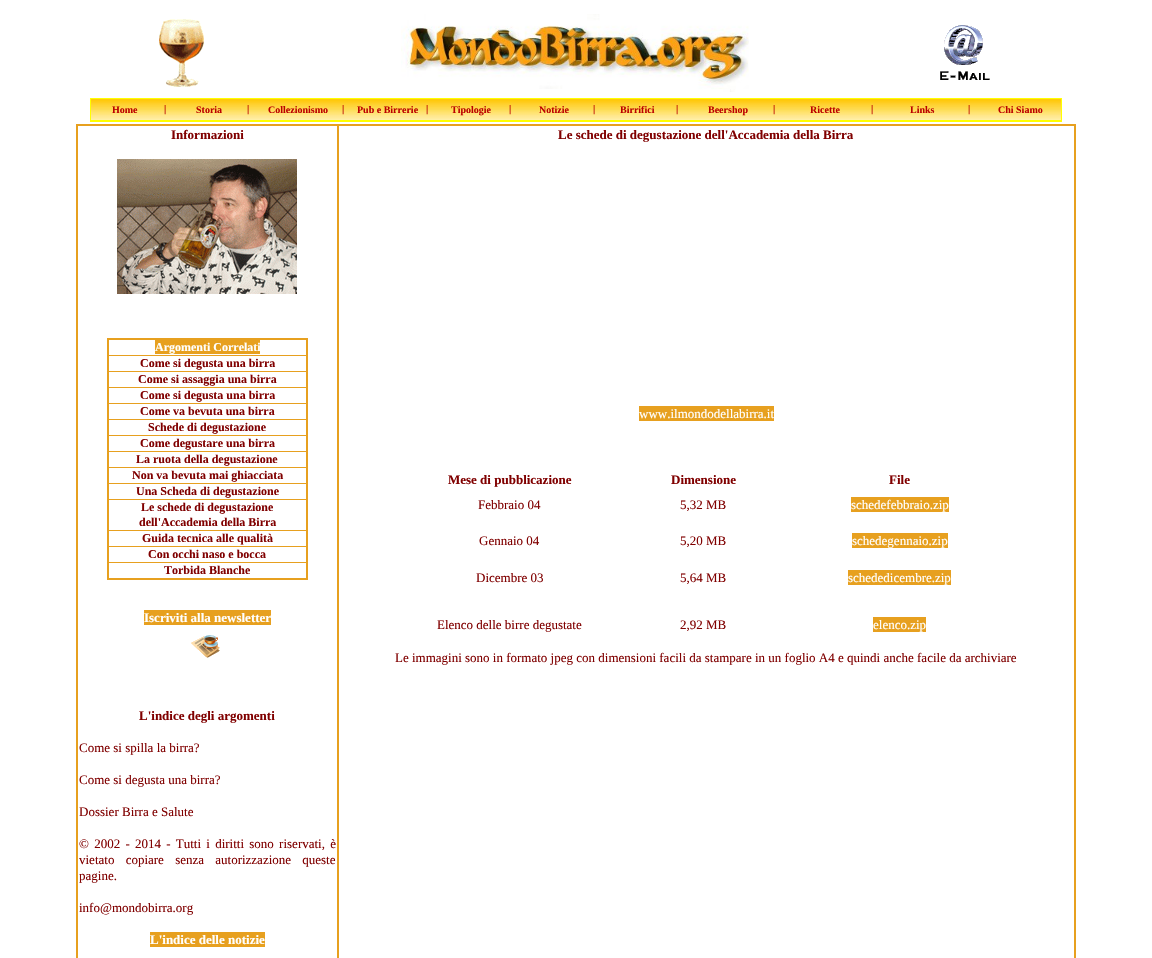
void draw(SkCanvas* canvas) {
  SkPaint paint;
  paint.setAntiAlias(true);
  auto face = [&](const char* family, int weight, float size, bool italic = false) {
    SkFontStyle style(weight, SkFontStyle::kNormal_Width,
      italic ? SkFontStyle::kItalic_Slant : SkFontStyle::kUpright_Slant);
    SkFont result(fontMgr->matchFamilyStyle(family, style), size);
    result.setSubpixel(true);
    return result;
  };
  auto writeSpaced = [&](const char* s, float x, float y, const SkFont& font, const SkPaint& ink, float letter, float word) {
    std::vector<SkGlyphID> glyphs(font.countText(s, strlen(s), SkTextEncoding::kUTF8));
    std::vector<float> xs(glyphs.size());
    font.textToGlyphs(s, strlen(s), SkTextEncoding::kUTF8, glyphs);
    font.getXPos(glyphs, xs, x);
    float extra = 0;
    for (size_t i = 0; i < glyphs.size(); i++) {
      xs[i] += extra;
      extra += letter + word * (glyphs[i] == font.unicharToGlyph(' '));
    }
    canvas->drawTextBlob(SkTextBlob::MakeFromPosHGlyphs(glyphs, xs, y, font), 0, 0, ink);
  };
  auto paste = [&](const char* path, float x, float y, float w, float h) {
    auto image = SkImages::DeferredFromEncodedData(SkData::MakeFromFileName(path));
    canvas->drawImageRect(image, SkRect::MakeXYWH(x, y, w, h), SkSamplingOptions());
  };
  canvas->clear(0xffffffff);
  paste("img/1.png", 159, 19, 45, 68);
  paste("img/2.png", 401, 14, 348, 78);
  paste("img/3.png", 940, 25, 50, 55);
  paint.setColor(0xffffff00);
  canvas->drawRect(SkRect::MakeXYWH(90, 98, 972, 24), paint);
  paste("img/4.png", 91, 99, 970, 21);
  paint.setColor(0xffe7a01f);
  canvas->drawRect(SkRect::MakeXYWH(76, 124, 1000, 834), paint);
  paint.setColor(0xffffffff);
  canvas->drawRect(SkRect::MakeXYWH(78, 126, 259, 832), paint);
  paste("img/5.png", 117, 159, 180, 135);
  {
    const struct { float x, y, w, h; SkColor color; } items[] = {
      {107, 338, 201, 2, 0xffe7a01f},
      {107, 355, 200, 1, 0xffe7a01f},
      {107, 371, 200, 1, 0xffe7a01f},
      {107, 387, 200, 1, 0xffe7a01f},
      {107, 403, 200, 1, 0xffe7a01f},
      {107, 419, 200, 1, 0xffe7a01f},
      {107, 435, 200, 1, 0xffe7a01f},
      {107, 451, 200, 1, 0xffe7a01f},
      {107, 467, 200, 1, 0xffe7a01f},
      {107, 483, 200, 1, 0xffe7a01f},
      {107, 499, 200, 1, 0xffe7a01f},
      {107, 530, 200, 1, 0xffe7a01f},
      {107, 546, 200, 1, 0xffe7a01f},
      {107, 562, 200, 1, 0xffe7a01f},
      {306, 338, 2, 242, 0xffe7a01f},
      {107, 578, 201, 2, 0xffe7a01f},
      {107, 338, 2, 242, 0xffe7a01f},
      {155, 340, 105, 14, 0xffe7a01f},
      {144, 610, 127, 15, 0xffe7a01f},
    };
    for (auto [x, y, w, h, color] : items) {
      paint.setColor(color);
      canvas->drawRect(SkRect::MakeXYWH(x, y, w, h), paint);
    }
  }
  paste("img/6.png", 191, 635, 29, 23);
  {
    const struct { float x, y, w, h; SkColor color; } items[] = {
      {150, 932, 115, 15, 0xffe7a01f},
      {339, 126, 735, 832, 0xffffffff},
      {639, 406, 135, 15, 0xffe7a01f},
      {851, 497, 98, 15, 0xffe7a01f},
      {852, 533, 96, 15, 0xffe7a01f},
      {848, 570, 103, 15, 0xffe7a01f},
      {873, 617, 53, 15, 0xffe7a01f},
    };
    for (auto [x, y, w, h, color] : items) {
      paint.setColor(color);
      canvas->drawRect(SkRect::MakeXYWH(x, y, w, h), paint);
    }
  }
  auto f0 = face("Liberation Serif", 700, 10);
  paint.setColor(0xffbb0000);
  {
    const struct { const char* s; float x, y; } items[] = {
      {"Home", 112, 113},
      {"|", 164, 112},
      {"Storia", 196, 113},
      {"|", 247, 112},
      {"Collezionismo", 268, 113},
      {"|", 342, 112},
      {"Pub e Birrerie", 357, 113},
      {"|", 426, 112},
      {"Tipologie", 451, 113},
      {"|", 509, 112},
      {"Notizie", 539, 113},
      {"|", 593, 112},
      {"Birrifici", 620, 113},
      {"|", 676, 112},
      {"Beershop", 708, 113},
      {"|", 773, 112},
      {"Ricette", 810, 113},
      {"|", 871, 112},
      {"Links", 910, 113},
      {"|", 968, 112},
      {"Chi Siamo", 998, 113},
    };
    for (auto [s, x, y] : items) {
      canvas->drawString(s, x, y, f0, paint);
    }
  }
  auto f1 = face("Liberation Serif", 700, 13);
  paint.setColor(0xff800000);
  canvas->drawString("Informazioni", 171, 139, f1, paint);
  auto f2 = face("Liberation Serif", 700, 12);
  paint.setColor(0xffffffff);
  canvas->drawString("Argomenti Correlati", 155, 351, f2, paint);
  paint.setColor(0xff800000);
  {
    const struct { const char* s; float x, y; } items[] = {
      {"Come si degusta una birra", 140, 367},
      {"Come si assaggia una birra", 138, 383},
      {"Come si degusta una birra", 140, 399},
      {"Come va bevuta una birra", 140, 415},
      {"Schede di degustazione", 148, 431},
      {"Come degustare una birra", 140, 447},
      {"La ruota della degustazione", 136, 463},
      {"Non va bevuta mai ghiacciata", 132, 479},
      {"Una Scheda di degustazione", 136, 495},
      {"Le schede di degustazione", 141, 511},
      {"dell'Accademia della Birra", 139, 526},
      {"Guida tecnica alle qualità", 142, 542},
      {"Con occhi naso e bocca", 148, 558},
      {"Torbida Blanche", 164, 574},
    };
    for (auto [s, x, y] : items) {
      canvas->drawString(s, x, y, f2, paint);
    }
  }
  paint.setColor(0xffffffff);
  canvas->drawString("Iscriviti alla newsletter", 144, 622, f1, paint);
  paint.setColor(0xff800000);
  canvas->drawString("L'indice degli argomenti", 139, 720, f1, paint);
  auto f3 = face("Liberation Serif", 400, 13);
  {
    const struct { const char* s; float x, y; } items[] = {
      {"Come si spilla la birra?", 79, 752},
      {"Come si degusta una birra?", 79, 784},
      {"Dossier Birra e Salute", 79, 816},
    };
    for (auto [s, x, y] : items) {
      canvas->drawString(s, x, y, f3, paint);
    }
  }
  writeSpaced("© 2002 - 2014 - Tutti i diritti sono riservati, è", 79, 848, f3, paint, 0, 2);
  writeSpaced("vietato copiare senza autorizzazione queste", 79, 864, f3, paint, 0, 8);
  canvas->drawString("pagine.", 79, 880, f3, paint);
  canvas->drawString("info@mondobirra.org", 79, 912, f3, paint);
  paint.setColor(0xffffffff);
  canvas->drawString("L'indice delle notizie", 150, 944, f1, paint);
  paint.setColor(0xff800000);
  canvas->drawString("Le schede di degustazione dell'Accademia della Birra", 558, 139, f1, paint);
  paint.setColor(0xffffffff);
  canvas->drawString("www.ilmondodellabirra.it", 639, 418, f3, paint);
  paint.setColor(0xff800000);
  {
    const struct { const char* s; float x, y; } items[] = {
      {"Mese di pubblicazione", 448, 484},
      {"Dimensione", 671, 484},
      {"File", 889, 484},
    };
    for (auto [s, x, y] : items) {
      canvas->drawString(s, x, y, f1, paint);
    }
  }
  canvas->drawString("Febbraio 04", 478, 509, f3, paint);
  canvas->drawString("5,32 MB", 680, 509, f3, paint);
  paint.setColor(0xffffffff);
  canvas->drawString("schedefebbraio.zip", 851, 509, f3, paint);
  paint.setColor(0xff800000);
  canvas->drawString("Gennaio 04", 479, 545, f3, paint);
  canvas->drawString("5,20 MB", 680, 545, f3, paint);
  paint.setColor(0xffffffff);
  canvas->drawString("schedegennaio.zip", 852, 545, f3, paint);
  paint.setColor(0xff800000);
  canvas->drawString("Dicembre 03", 476, 582, f3, paint);
  canvas->drawString("5,64 MB", 680, 582, f3, paint);
  paint.setColor(0xffffffff);
  canvas->drawString("schededicembre.zip", 848, 582, f3, paint);
  paint.setColor(0xff800000);
  canvas->drawString("Elenco delle birre degustate", 437, 629, f3, paint);
  canvas->drawString("2,92 MB", 680, 629, f3, paint);
  paint.setColor(0xffffffff);
  canvas->drawString("elenco.zip", 873, 629, f3, paint);
  paint.setColor(0xff800000);
  canvas->drawString("Le immagini sono in formato jpeg con dimensioni facili da stampare in un foglio A4 e quindi anche facile da archiviare", 395, 662, f3, paint);
}
